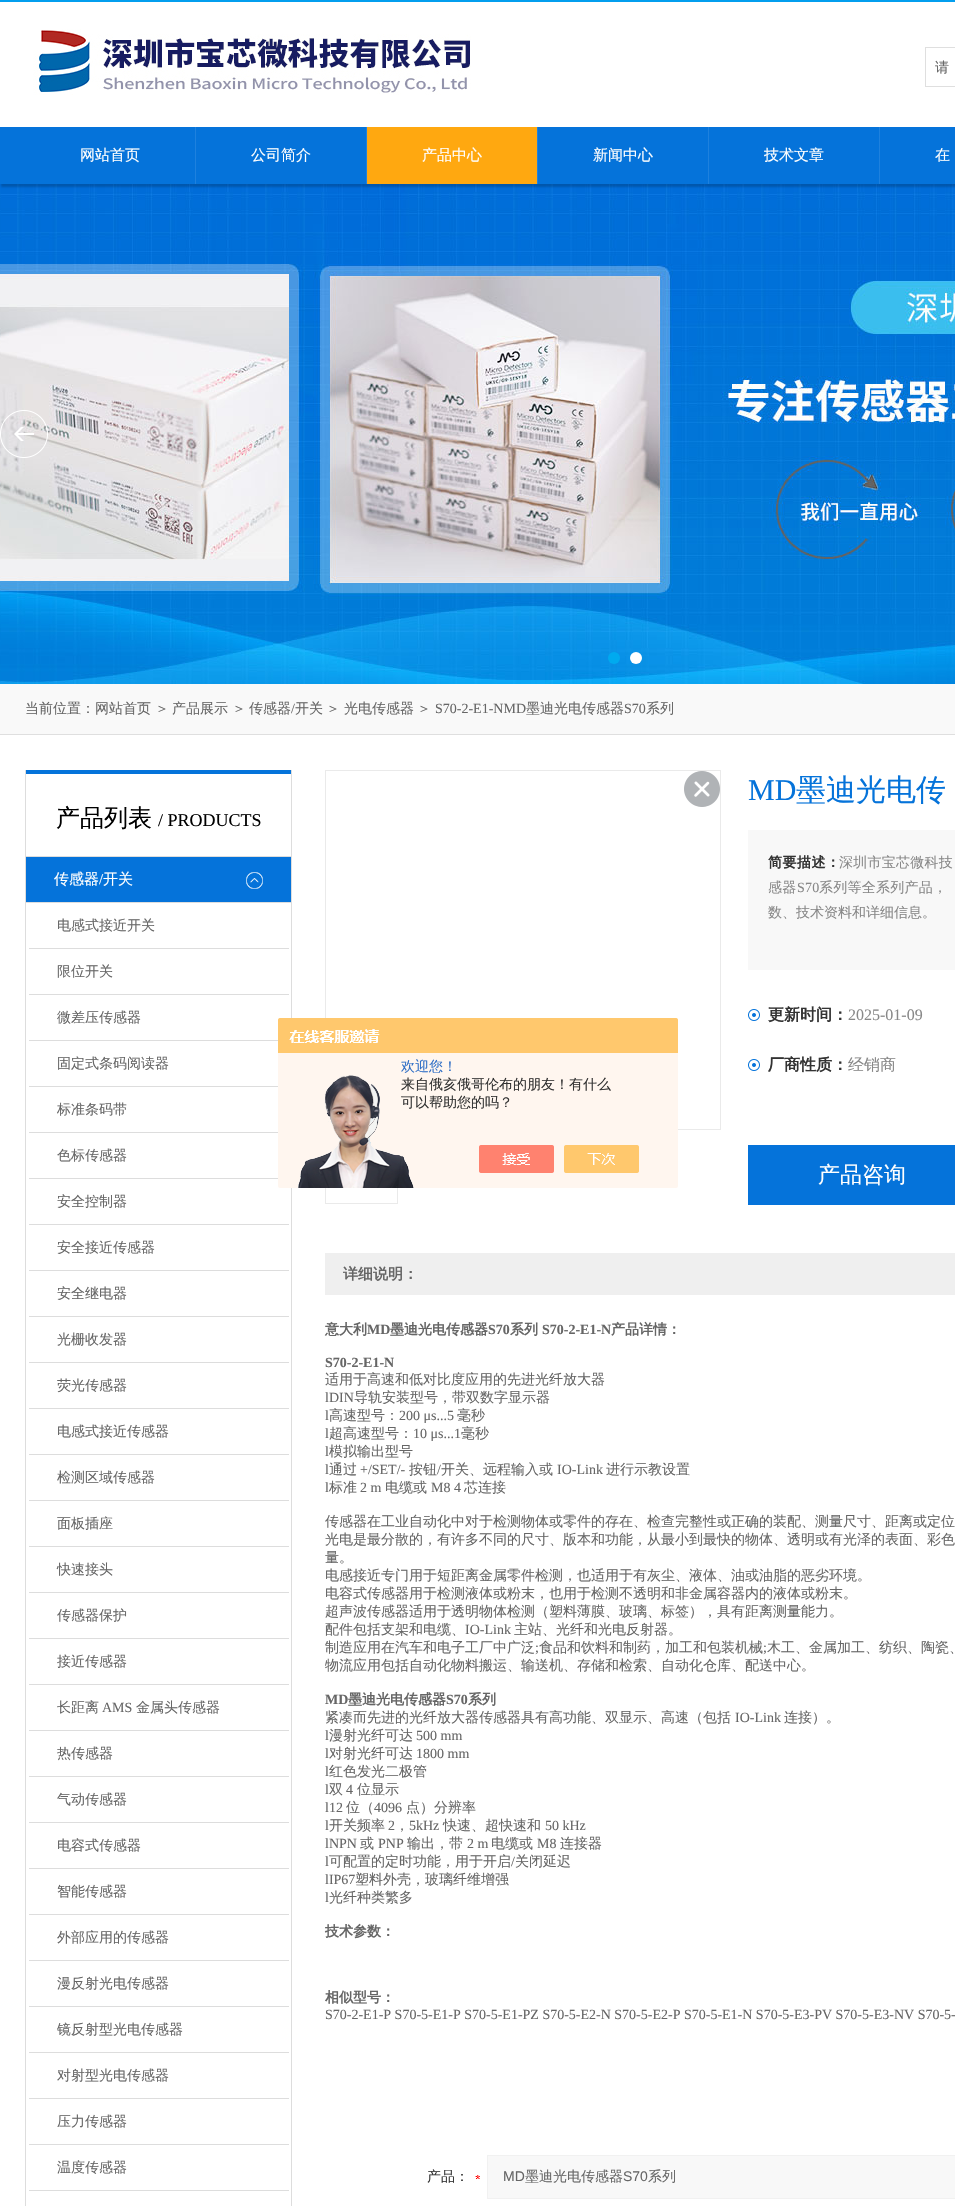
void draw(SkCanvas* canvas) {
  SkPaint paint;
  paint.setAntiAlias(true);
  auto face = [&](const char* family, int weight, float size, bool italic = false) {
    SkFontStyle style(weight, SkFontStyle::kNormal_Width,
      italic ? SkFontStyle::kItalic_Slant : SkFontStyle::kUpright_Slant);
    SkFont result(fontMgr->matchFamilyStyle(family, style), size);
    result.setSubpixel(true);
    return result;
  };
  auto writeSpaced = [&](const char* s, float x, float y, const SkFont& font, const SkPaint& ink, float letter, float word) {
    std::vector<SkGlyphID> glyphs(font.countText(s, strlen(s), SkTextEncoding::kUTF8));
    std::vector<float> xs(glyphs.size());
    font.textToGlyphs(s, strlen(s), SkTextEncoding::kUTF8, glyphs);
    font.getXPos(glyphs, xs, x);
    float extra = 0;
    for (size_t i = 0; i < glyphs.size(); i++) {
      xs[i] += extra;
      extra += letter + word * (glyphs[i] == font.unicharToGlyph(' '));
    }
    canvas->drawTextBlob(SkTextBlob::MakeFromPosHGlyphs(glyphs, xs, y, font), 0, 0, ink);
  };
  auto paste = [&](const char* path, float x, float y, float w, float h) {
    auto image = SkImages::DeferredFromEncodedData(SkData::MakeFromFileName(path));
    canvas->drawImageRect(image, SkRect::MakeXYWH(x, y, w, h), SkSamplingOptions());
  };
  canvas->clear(0xffffffff);
  paint.setColor(0xff039eee);
  canvas->drawRect(SkRect::MakeXYWH(0, 0, 955, 2), paint);
  paste("img/1.png", 33, 29, 438, 66);
  {
    const struct { float x, y, w, h; SkColor color; } items[] = {
      {925, 47, 30, 1, 0xffdfdfdf},
      {925, 86, 30, 1, 0xffdfdfdf},
      {925, 47, 1, 40, 0xffdfdfdf},
    };
    for (auto [x, y, w, h, color] : items) {
      paint.setColor(color);
      canvas->drawRect(SkRect::MakeXYWH(x, y, w, h), paint);
    }
  }
  paste("img/2.png", 0, 184, 955, 500);
  paint.setColor(0x33000000);
  paint.setMaskFilter(SkMaskFilter::MakeBlur(kNormal_SkBlurStyle, 1));
  canvas->drawRect(SkRect::MakeXYWH(1, 132, 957, 55), paint);
  paint.setMaskFilter(nullptr);
  {
    const struct { float x, y, w, h; SkColor color; } items[] = {
      {0, 127, 955, 57, 0xff0573da},
      {195, 127, 1, 57, 0xff1e81de},
      {366, 127, 1, 57, 0xff1e81de},
      {367, 127, 170, 57, 0xffffa810},
      {537, 127, 1, 57, 0xff1e81de},
      {708, 127, 1, 57, 0xff1e81de},
      {879, 127, 1, 57, 0xff1e81de},
    };
    for (auto [x, y, w, h, color] : items) {
      paint.setColor(color);
      canvas->drawRect(SkRect::MakeXYWH(x, y, w, h), paint);
    }
  }
  paste("img/3.png", 0, 410, 48, 48);
  paint.setColor(0xff00aaef);
  canvas->drawCircle(614, 658, 6, paint);
  paint.setColor(0xffffffff);
  canvas->drawCircle(636, 658, 6, paint);
  {
    const struct { float x, y, w, h; SkColor color; } items[] = {
      {0, 684, 955, 50, 0xfff9f9f9},
      {0, 734, 955, 1, 0xffdfdfdf},
      {291, 770, 1, 1436, 0xffdddddd},
      {25, 770, 1, 1436, 0xffdddddd},
      {26, 770, 265, 4, 0xff0573da},
      {26, 856, 265, 1, 0xffdddddd},
      {26, 857, 265, 45, 0xff0573da},
    };
    for (auto [x, y, w, h, color] : items) {
      paint.setColor(color);
      canvas->drawRect(SkRect::MakeXYWH(x, y, w, h), paint);
    }
  }
  paste("img/4.png", 246, 872, 17, 17);
  {
    const struct { float x, y, w, h; SkColor color; } items[] = {
      {26, 902, 265, 1, 0xffdddddd},
      {29, 948, 260, 1, 0xffdddddd},
      {29, 994, 260, 1, 0xffdddddd},
      {29, 1040, 249, 1, 0xffdddddd},
      {29, 1086, 249, 1, 0xffdddddd},
      {29, 1132, 249, 1, 0xffdddddd},
      {29, 1178, 249, 1, 0xffdddddd},
      {29, 1224, 260, 1, 0xffdddddd},
      {29, 1270, 260, 1, 0xffdddddd},
      {29, 1316, 260, 1, 0xffdddddd},
      {29, 1362, 260, 1, 0xffdddddd},
      {29, 1408, 260, 1, 0xffdddddd},
      {29, 1454, 260, 1, 0xffdddddd},
      {29, 1500, 260, 1, 0xffdddddd},
      {29, 1546, 260, 1, 0xffdddddd},
      {29, 1592, 260, 1, 0xffdddddd},
      {29, 1638, 260, 1, 0xffdddddd},
      {29, 1684, 260, 1, 0xffdddddd},
      {29, 1730, 260, 1, 0xffdddddd},
      {29, 1776, 260, 1, 0xffdddddd},
      {29, 1822, 260, 1, 0xffdddddd},
      {29, 1868, 260, 1, 0xffdddddd},
      {29, 1914, 260, 1, 0xffdddddd},
      {29, 1960, 260, 1, 0xffdddddd},
      {29, 2006, 260, 1, 0xffdddddd},
      {29, 2052, 260, 1, 0xffdddddd},
      {29, 2098, 260, 1, 0xffdddddd},
      {29, 2144, 260, 1, 0xffdddddd},
      {29, 2190, 260, 1, 0xffdddddd},
    };
    for (auto [x, y, w, h, color] : items) {
      paint.setColor(color);
      canvas->drawRect(SkRect::MakeXYWH(x, y, w, h), paint);
    }
  }
  paint.setStroke(true);
  paint.setStrokeWidth(1);
  paint.setColor(0xffeaeaea);
  canvas->drawRect(SkRect::MakeXYWH(325.5f, 770.5f, 395, 359), paint);
  paste("img/5.png", 684, 771, 36, 36);
  canvas->drawRect(SkRect::MakeXYWH(325.5f, 1140.5f, 72, 63), paint);
  paint.setStroke(false);
  paint.setColor(0xfff8f8f8);
  canvas->drawRect(SkRect::MakeXYWH(748, 830, 207, 140), paint);
  paste("img/6.png", 748, 1009, 12, 12);
  paste("img/6.png", 748, 1059, 12, 12);
  paint.setColor(0xff0573da);
  canvas->drawRect(SkRect::MakeXYWH(748, 1145, 207, 60), paint);
  paint.setColor(0xffefefef);
  canvas->drawRect(SkRect::MakeXYWH(325, 1253, 630, 42), paint);
  paste("img/7.png", 475, 2175, 5, 4);
  paint.setColor(0xfff8f8f8);
  canvas->drawRect(SkRect::MakeXYWH(487.5f, 2155.5f, 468, 43), paint);
  paint.setStroke(true);
  paint.setColor(0xfff1f1f1);
  canvas->drawRect(SkRect::MakeXYWH(487.5f, 2155.5f, 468, 43), paint);
  paste("img/8.png", 278, 1018, 400, 170);
  auto f0 = face("WenQuanYi Zen Hei", 500, 14);
  paint.setStroke(false);
  paint.setColor(0xff666666);
  canvas->drawString("请", 935, 72, f0, paint);
  auto f1 = face("WenQuanYi Zen Hei", 500, 15);
  paint.setColor(0xffffffff);
  {
    const struct { const char* s; float x, y; } items[] = {
      {"网站首页", 80, 160},
      {"公司简介", 251, 160},
      {"产品中心", 422, 160},
      {"新闻中心", 593, 160},
      {"技术文章", 764, 160},
      {"在", 935, 160},
    };
    for (auto [s, x, y] : items) {
      canvas->drawString(s, x, y, f1, paint);
    }
  }
  paint.setColor(0xff666666);
  {
    const struct { const char* s; float x, y; } items[] = {
      {"当前位置：网站首页", 25, 713},
      {"＞", 155, 713},
      {"产品展示", 172, 713},
      {"＞", 232, 713},
      {"传感器", 249, 713},
    };
    for (auto [s, x, y] : items) {
      canvas->drawString(s, x, y, f0, paint);
    }
  }
  auto f2 = face("Liberation Serif", 400, 14);
  canvas->drawString("/", 291, 713, f2, paint);
  {
    const struct { const char* s; float x, y; } items[] = {
      {"开关", 295, 713},
      {"＞", 326, 713},
      {"光电传感器", 344, 713},
      {"＞", 417, 713},
    };
    for (auto [s, x, y] : items) {
      canvas->drawString(s, x, y, f0, paint);
    }
  }
  canvas->drawString("S70-2-E1-NMD", 435, 713, f2, paint);
  canvas->drawString("墨迪光电传感器", 526, 713, f0, paint);
  canvas->drawString("S70", 624, 713, f2, paint);
  canvas->drawString("系列", 646, 713, f0, paint);
  auto f3 = face("WenQuanYi Zen Hei", 500, 24);
  paint.setColor(0xff000000);
  canvas->drawString("产品列表", 56, 826, f3, paint);
  auto f4 = face("Liberation Serif", 400, 18);
  canvas->drawString("/ PRODUCTS", 158, 826, f4, paint);
  paint.setColor(0xffffffff);
  canvas->drawString("传感器", 54, 884, f1, paint);
  auto f5 = face("Liberation Serif", 400, 15);
  canvas->drawString("/", 99, 884, f5, paint);
  canvas->drawString("开关", 103, 884, f1, paint);
  paint.setColor(0xff666666);
  {
    const struct { const char* s; float x, y; } items[] = {
      {"电感式接近开关", 57, 930},
      {"限位开关", 57, 976},
      {"微差压传感器", 57, 1022},
      {"固定式条码阅读器", 57, 1068},
      {"标准条码带", 57, 1114},
      {"色标传感器", 57, 1160},
      {"安全控制器", 57, 1206},
      {"安全接近传感器", 57, 1252},
      {"安全继电器", 57, 1298},
      {"光栅收发器", 57, 1344},
      {"荧光传感器", 57, 1390},
      {"电感式接近传感器", 57, 1436},
      {"检测区域传感器", 57, 1482},
      {"面板插座", 57, 1528},
      {"快速接头", 57, 1574},
      {"传感器保护", 57, 1620},
      {"接近传感器", 57, 1666},
      {"长距离", 57, 1712},
    };
    for (auto [s, x, y] : items) {
      canvas->drawString(s, x, y, f0, paint);
    }
  }
  canvas->drawString("AMS", 102, 1712, f2, paint);
  {
    const struct { const char* s; float x, y; } items[] = {
      {"金属头传感器", 136, 1712},
      {"热传感器", 57, 1758},
      {"气动传感器", 57, 1804},
      {"电容式传感器", 57, 1850},
      {"智能传感器", 57, 1896},
      {"外部应用的传感器", 57, 1942},
      {"漫反射光电传感器", 57, 1988},
      {"镜反射型光电传感器", 57, 2034},
      {"对射型光电传感器", 57, 2080},
      {"压力传感器", 57, 2126},
      {"温度传感器", 57, 2172},
    };
    for (auto [s, x, y] : items) {
      canvas->drawString(s, x, y, f0, paint);
    }
  }
  auto f6 = face("Liberation Serif", 400, 30);
  paint.setColor(0xff0573da);
  canvas->drawString("MD", 748, 800, f6, paint);
  auto f7 = face("WenQuanYi Zen Hei", 500, 30);
  canvas->drawString("墨迪光电传", 796, 800, f7, paint);
  auto f8 = face("WenQuanYi Zen Hei", 700, 14);
  paint.setColor(0xff333333);
  writeSpaced("简要描述：", 768, 867, f8, paint, 0.5f, 0);
  paint.setColor(0xff888888);
  writeSpaced("深圳市宝芯微科技", 839, 867, f0, paint, 0.25f, 0);
  writeSpaced("感器", 768, 892, f0, paint, 0.25f, 0);
  writeSpaced("S70", 797, 892, f2, paint, 0.25f, 0);
  writeSpaced("系列等全系列产品，", 819, 892, f0, paint, 0.25f, 0);
  canvas->drawString("数、技术资料和详细信息。", 768, 917, f0, paint);
  auto f9 = face("WenQuanYi Zen Hei", 700, 16);
  paint.setColor(0xff333333);
  canvas->drawString("更新时间：", 768, 1020, f9, paint);
  auto f10 = face("Liberation Serif", 400, 16);
  paint.setColor(0xff888888);
  canvas->drawString("2025-01-09", 848, 1020, f10, paint);
  paint.setColor(0xff333333);
  canvas->drawString("厂商性质：", 768, 1070, f9, paint);
  auto f11 = face("WenQuanYi Zen Hei", 500, 16);
  paint.setColor(0xff888888);
  canvas->drawString("经销商", 848, 1070, f11, paint);
  auto f12 = face("WenQuanYi Zen Hei", 500, 22);
  paint.setColor(0xffffffff);
  canvas->drawString("产品咨询", 818, 1182, f12, paint);
  auto f13 = face("WenQuanYi Zen Hei", 700, 15);
  paint.setColor(0xff666666);
  canvas->drawString("详细说明：", 343, 1279, f13, paint);
  canvas->drawString("意大利", 325, 1334, f8, paint);
  auto f14 = face("Liberation Serif", 700, 14);
  canvas->drawString("MD", 367, 1334, f14, paint);
  canvas->drawString("墨迪光电传感器", 390, 1334, f8, paint);
  canvas->drawString("S70", 488, 1334, f14, paint);
  canvas->drawString("系列", 510, 1334, f8, paint);
  canvas->drawString("S70-2-E1-N", 542, 1334, f14, paint);
  canvas->drawString("产品详情：", 611, 1334, f8, paint);
  canvas->drawString("S70-2-E1-N", 325, 1367, f14, paint);
  canvas->drawString("适用于高速和低对比度应用的先进光纤放大器", 325, 1384, f0, paint);
  canvas->drawString("lDIN", 325, 1402, f2, paint);
  canvas->drawString("导轨安装型号，带双数字显示器", 354, 1402, f0, paint);
  canvas->drawString("l", 325, 1420, f2, paint);
  canvas->drawString("高速型号：", 329, 1420, f0, paint);
  canvas->drawString("200 μs...5", 399, 1420, f2, paint);
  canvas->drawString("毫秒", 457, 1420, f0, paint);
  canvas->drawString("l", 325, 1438, f2, paint);
  canvas->drawString("超高速型号：", 329, 1438, f0, paint);
  canvas->drawString("10 μs...1", 413, 1438, f2, paint);
  canvas->drawString("毫秒", 461, 1438, f0, paint);
  canvas->drawString("l", 325, 1456, f2, paint);
  canvas->drawString("模拟输出型号", 329, 1456, f0, paint);
  canvas->drawString("l", 325, 1474, f2, paint);
  canvas->drawString("通过", 329, 1474, f0, paint);
  canvas->drawString("+/SET/-", 360, 1474, f2, paint);
  canvas->drawString("按钮", 409, 1474, f0, paint);
  canvas->drawString("/", 437, 1474, f2, paint);
  canvas->drawString("开关、远程输入或", 441, 1474, f0, paint);
  canvas->drawString("IO-Link", 557, 1474, f2, paint);
  canvas->drawString("进行示教设置", 606, 1474, f0, paint);
  canvas->drawString("l", 325, 1492, f2, paint);
  canvas->drawString("标准", 329, 1492, f0, paint);
  canvas->drawString("2 m", 360, 1492, f2, paint);
  canvas->drawString("电缆或", 385, 1492, f0, paint);
  canvas->drawString("M8 4", 431, 1492, f2, paint);
  {
    const struct { const char* s; float x, y; } items[] = {
      {"芯连接", 464, 1492},
      {"传感器在工业自动化中对于检测物体或零件的存在、检查完整性或正确的装配、测量尺寸、距离或定位", 325, 1526},
      {"光电是最分散的，有许多不同的尺寸、版本和功能，从最小到最快的物体、透明或有光泽的表面、彩色", 325, 1544},
      {"量。", 325, 1562},
      {"电感接近专门用于短距离金属零件检测，也适用于有灰尘、液体、油或油脂的恶劣环境。", 325, 1580},
      {"电容式传感器用于检测液体或粉末，也用于检测不透明和非金属容器内的液体或粉末。", 325, 1598},
      {"超声波传感器适用于透明物体检测（塑料薄膜、玻璃、标签），具有距离测量能力。", 325, 1616},
      {"配件包括支架和电缆、", 325, 1634},
    };
    for (auto [s, x, y] : items) {
      canvas->drawString(s, x, y, f0, paint);
    }
  }
  canvas->drawString("IO-Link", 465, 1634, f2, paint);
  canvas->drawString("主站、光纤和光电反射器。", 514, 1634, f0, paint);
  canvas->drawString("制造应用在汽车和电子工厂中广泛", 325, 1652, f0, paint);
  canvas->drawString(";", 535, 1652, f2, paint);
  canvas->drawString("食品和饮料和制药，加工和包装机械", 539, 1652, f0, paint);
  canvas->drawString(";", 763, 1652, f2, paint);
  canvas->drawString("木工、金属加工、纺织、陶瓷、", 767, 1652, f0, paint);
  canvas->drawString("物流应用包括自动化物料搬运、输送机、存储和检索、自动化仓库、配送中心。", 325, 1670, f0, paint);
  canvas->drawString("MD", 325, 1704, f14, paint);
  canvas->drawString("墨迪光电传感器", 348, 1704, f8, paint);
  canvas->drawString("S70", 446, 1704, f14, paint);
  canvas->drawString("系列", 468, 1704, f8, paint);
  canvas->drawString("紧凑而先进的光纤放大器传感器具有高功能、双显示、高速（包括", 325, 1722, f0, paint);
  canvas->drawString("IO-Link", 735, 1722, f2, paint);
  canvas->drawString("连接）。", 784, 1722, f0, paint);
  canvas->drawString("l", 325, 1740, f2, paint);
  canvas->drawString("漫射光纤可达", 329, 1740, f0, paint);
  canvas->drawString("500 mm", 416, 1740, f2, paint);
  canvas->drawString("l", 325, 1758, f2, paint);
  canvas->drawString("对射光纤可达", 329, 1758, f0, paint);
  canvas->drawString("1800 mm", 416, 1758, f2, paint);
  canvas->drawString("l", 325, 1776, f2, paint);
  canvas->drawString("红色发光二极管", 329, 1776, f0, paint);
  canvas->drawString("l", 325, 1794, f2, paint);
  canvas->drawString("双", 329, 1794, f0, paint);
  canvas->drawString("4", 346, 1794, f2, paint);
  canvas->drawString("位显示", 357, 1794, f0, paint);
  canvas->drawString("l12", 325, 1812, f2, paint);
  canvas->drawString("位（", 346, 1812, f0, paint);
  canvas->drawString("4096", 374, 1812, f2, paint);
  canvas->drawString("点）分辨率", 406, 1812, f0, paint);
  canvas->drawString("l", 325, 1830, f2, paint);
  canvas->drawString("开关频率", 329, 1830, f0, paint);
  canvas->drawString("2", 388, 1830, f2, paint);
  canvas->drawString("，", 395, 1830, f0, paint);
  canvas->drawString("5kHz", 409, 1830, f2, paint);
  canvas->drawString("快速、超快速和", 443, 1830, f0, paint);
  canvas->drawString("50 kHz", 545, 1830, f2, paint);
  canvas->drawString("lNPN", 325, 1848, f2, paint);
  canvas->drawString("或", 360, 1848, f0, paint);
  canvas->drawString("PNP", 378, 1848, f2, paint);
  canvas->drawString("输出，带", 407, 1848, f0, paint);
  canvas->drawString("2 m", 467, 1848, f2, paint);
  canvas->drawString("电缆或", 491, 1848, f0, paint);
  canvas->drawString("M8", 537, 1848, f2, paint);
  canvas->drawString("连接器", 560, 1848, f0, paint);
  canvas->drawString("l", 325, 1866, f2, paint);
  canvas->drawString("可配置的定时功能，用于开启", 329, 1866, f0, paint);
  canvas->drawString("/", 511, 1866, f2, paint);
  canvas->drawString("关闭延迟", 515, 1866, f0, paint);
  canvas->drawString("lIP67", 325, 1884, f2, paint);
  canvas->drawString("塑料外壳，玻璃纤维增强", 355, 1884, f0, paint);
  canvas->drawString("l", 325, 1902, f2, paint);
  canvas->drawString("光纤种类繁多", 329, 1902, f0, paint);
  canvas->drawString("技术参数：", 325, 1936, f8, paint);
  canvas->drawString("相似型号：", 325, 2002, f8, paint);
  canvas->drawString("S70-2-E1-P S70-5-E1-P S70-5-E1-PZ S70-5-E2-N S70-5-E2-P S70-5-E1-N S70-5-E3-PV S70-5-E3-NV S70-5-", 325, 2019, f2, paint);
  paint.setColor(0xff333333);
  canvas->drawString("产品：", 427, 2181, f0, paint);
  auto f15 = face("Liberation Sans", 400, 14);
  paint.setColor(0xff666666);
  canvas->drawString("MD", 503, 2181, f15, paint);
  canvas->drawString("墨迪光电传感器", 525, 2181, f0, paint);
  canvas->drawString("S70", 623, 2181, f15, paint);
  canvas->drawString("系列", 648, 2181, f0, paint);
  paint.setColor(0xff2e6ec6);
  canvas->drawString("欢迎您！", 401, 1071, f0, paint);
  paint.setColor(0xff333333);
  canvas->drawString("来自俄亥俄哥伦布的朋友！有什么", 401, 1089, f0, paint);
  canvas->drawString("可以帮助您的吗？", 401, 1107, f0, paint);
}
